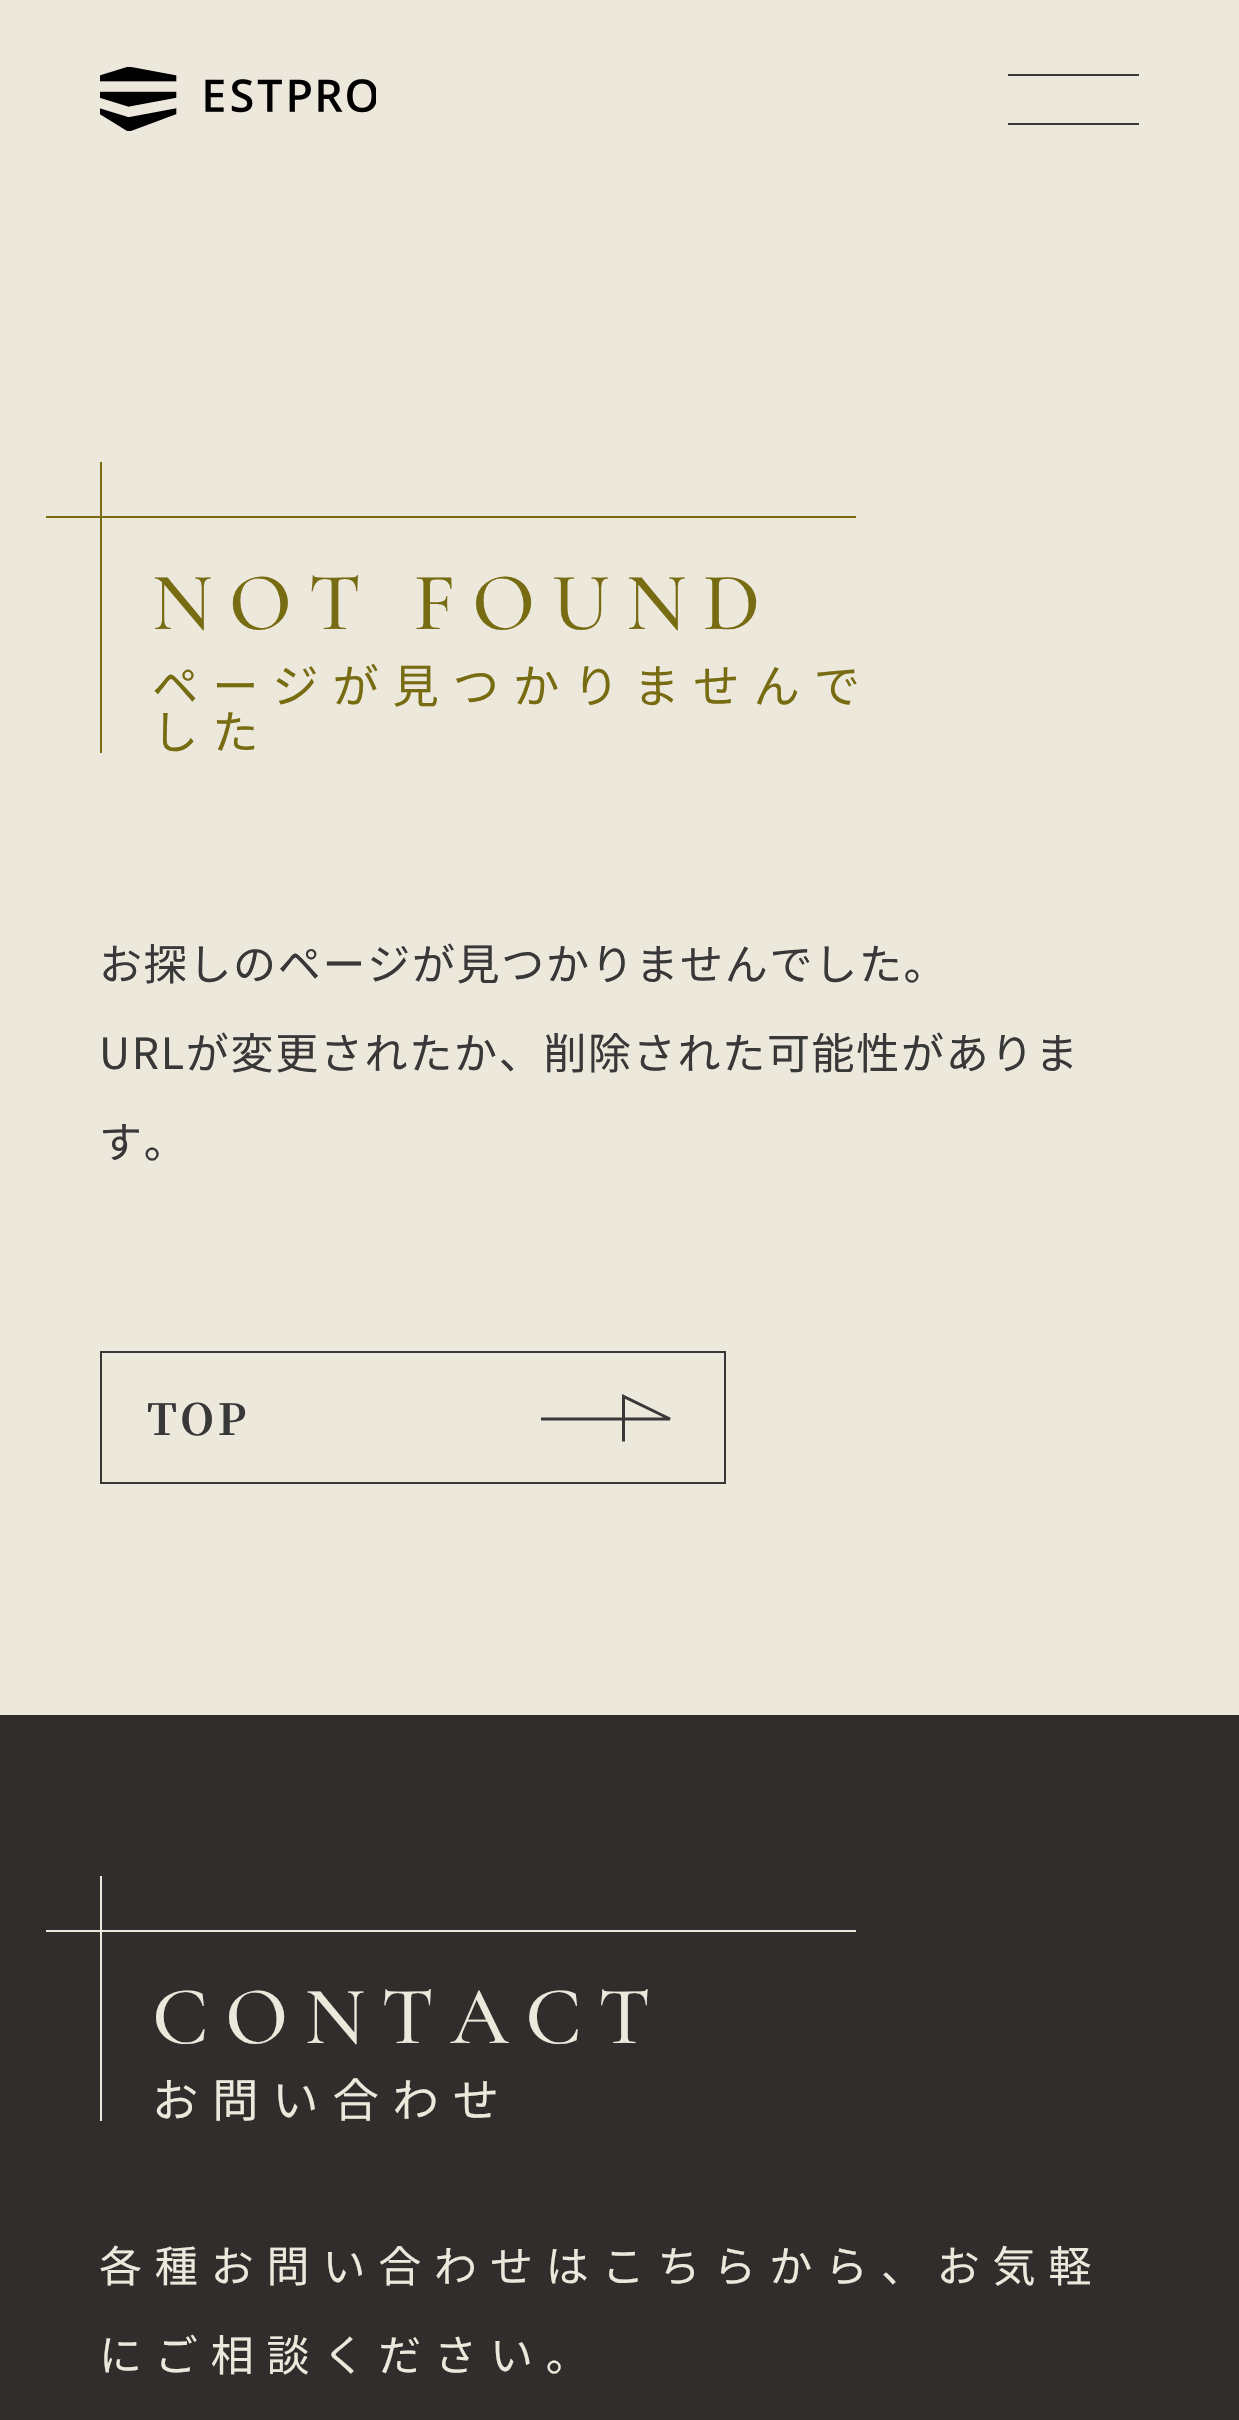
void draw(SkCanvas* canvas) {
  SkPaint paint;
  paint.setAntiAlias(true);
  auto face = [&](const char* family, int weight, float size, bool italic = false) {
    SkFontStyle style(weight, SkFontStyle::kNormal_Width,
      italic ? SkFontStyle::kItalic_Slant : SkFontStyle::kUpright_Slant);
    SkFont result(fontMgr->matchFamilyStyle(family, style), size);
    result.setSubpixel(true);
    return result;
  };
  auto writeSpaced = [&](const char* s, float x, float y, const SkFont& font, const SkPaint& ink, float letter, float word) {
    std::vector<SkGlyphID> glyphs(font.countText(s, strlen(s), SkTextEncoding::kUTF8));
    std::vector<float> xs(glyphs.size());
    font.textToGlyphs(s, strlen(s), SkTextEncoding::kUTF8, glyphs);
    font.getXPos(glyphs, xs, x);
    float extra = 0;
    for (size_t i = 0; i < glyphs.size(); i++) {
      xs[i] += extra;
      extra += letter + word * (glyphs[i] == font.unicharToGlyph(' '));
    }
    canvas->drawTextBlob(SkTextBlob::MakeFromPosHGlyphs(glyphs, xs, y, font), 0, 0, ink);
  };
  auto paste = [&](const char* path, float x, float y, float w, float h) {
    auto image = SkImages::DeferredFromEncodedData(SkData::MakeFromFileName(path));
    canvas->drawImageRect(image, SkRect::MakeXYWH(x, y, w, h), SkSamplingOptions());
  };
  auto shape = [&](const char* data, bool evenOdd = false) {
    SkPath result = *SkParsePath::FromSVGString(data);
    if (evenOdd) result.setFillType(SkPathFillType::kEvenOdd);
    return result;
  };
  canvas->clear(0xffede8dc);
  paste("img/1.png", 100, 67, 276, 64);
  {
    const struct { float x, y, w, h; SkColor color; } items[] = {
      {1008, 74, 131, 2, 0xff383838},
      {1008, 123, 131, 2, 0xff383838},
      {46, 516, 810, 2, 0xff786c12},
      {100, 462, 2, 291, 0xff786c12},
    };
    for (auto [x, y, w, h, color] : items) {
      paint.setColor(color);
      canvas->drawRect(SkRect::MakeXYWH(x, y, w, h), paint);
    }
  }
  paint.setStroke(true);
  paint.setStrokeWidth(2);
  paint.setColor(0xff383838);
  canvas->drawRect(SkRect::MakeXYWH(101, 1352, 624, 131), paint);
  paint.setStrokeWidth(3);
  canvas->drawPath(shape("M541 1419H670L623.5 1396.5V1441.5"), paint);
  paint.setStroke(false);
  {
    const struct { float x, y, w, h; SkColor color; } items[] = {
      {0, 1715, 1239, 705, 0xff302e2d},
      {46, 1930, 810, 2, 0xffede8dc},
      {100, 1876, 2, 245, 0xffede8dc},
    };
    for (auto [x, y, w, h, color] : items) {
      paint.setColor(color);
      canvas->drawRect(SkRect::MakeXYWH(x, y, w, h), paint);
    }
  }
  auto f0 = face("Cormorant Garamond", 500, 82.5f);
  paint.setColor(0xff786c12);
  writeSpaced("NOT FOUND", 152, 629, f0, paint, 16.5f, 0);
  auto f1 = face("Noto Sans JP", 400, 46.25f);
  writeSpaced("ページが見つかりませんで", 152, 703, f1, paint, 13.9f, 0);
  writeSpaced("した", 152, 749, f1, paint, 13.9f, 0);
  auto f2 = face("Noto Sans JP", 400, 42.95f);
  paint.setColor(0xff383838);
  {
    const struct { const char* s; float x, y; } items[] = {
      {"お探しのページが見つかりませんでした。", 99, 980},
      {"URLが変更されたか、削除された可能性がありま", 99, 1069},
      {"す。", 99, 1158},
    };
    for (auto [s, x, y] : items) {
      writeSpaced(s, x, y, f2, paint, 1.75f, 0);
    }
  }
  auto f3 = face("Noto Serif JP", 700, 42.95f);
  writeSpaced("TOP", 147, 1435, f3, paint, 3.5f, 0);
  paint.setColor(0xffede8dc);
  writeSpaced("CONTACT", 152, 2043, f0, paint, 16.5f, 0);
  writeSpaced("お問い合わせ", 152, 2117, f1, paint, 13.9f, 0);
  writeSpaced("各種お問い合わせはこちらから、お気軽", 99, 2282, f2, paint, 12.9f, 0);
  writeSpaced("にご相談ください。", 99, 2371, f2, paint, 12.9f, 0);
}
